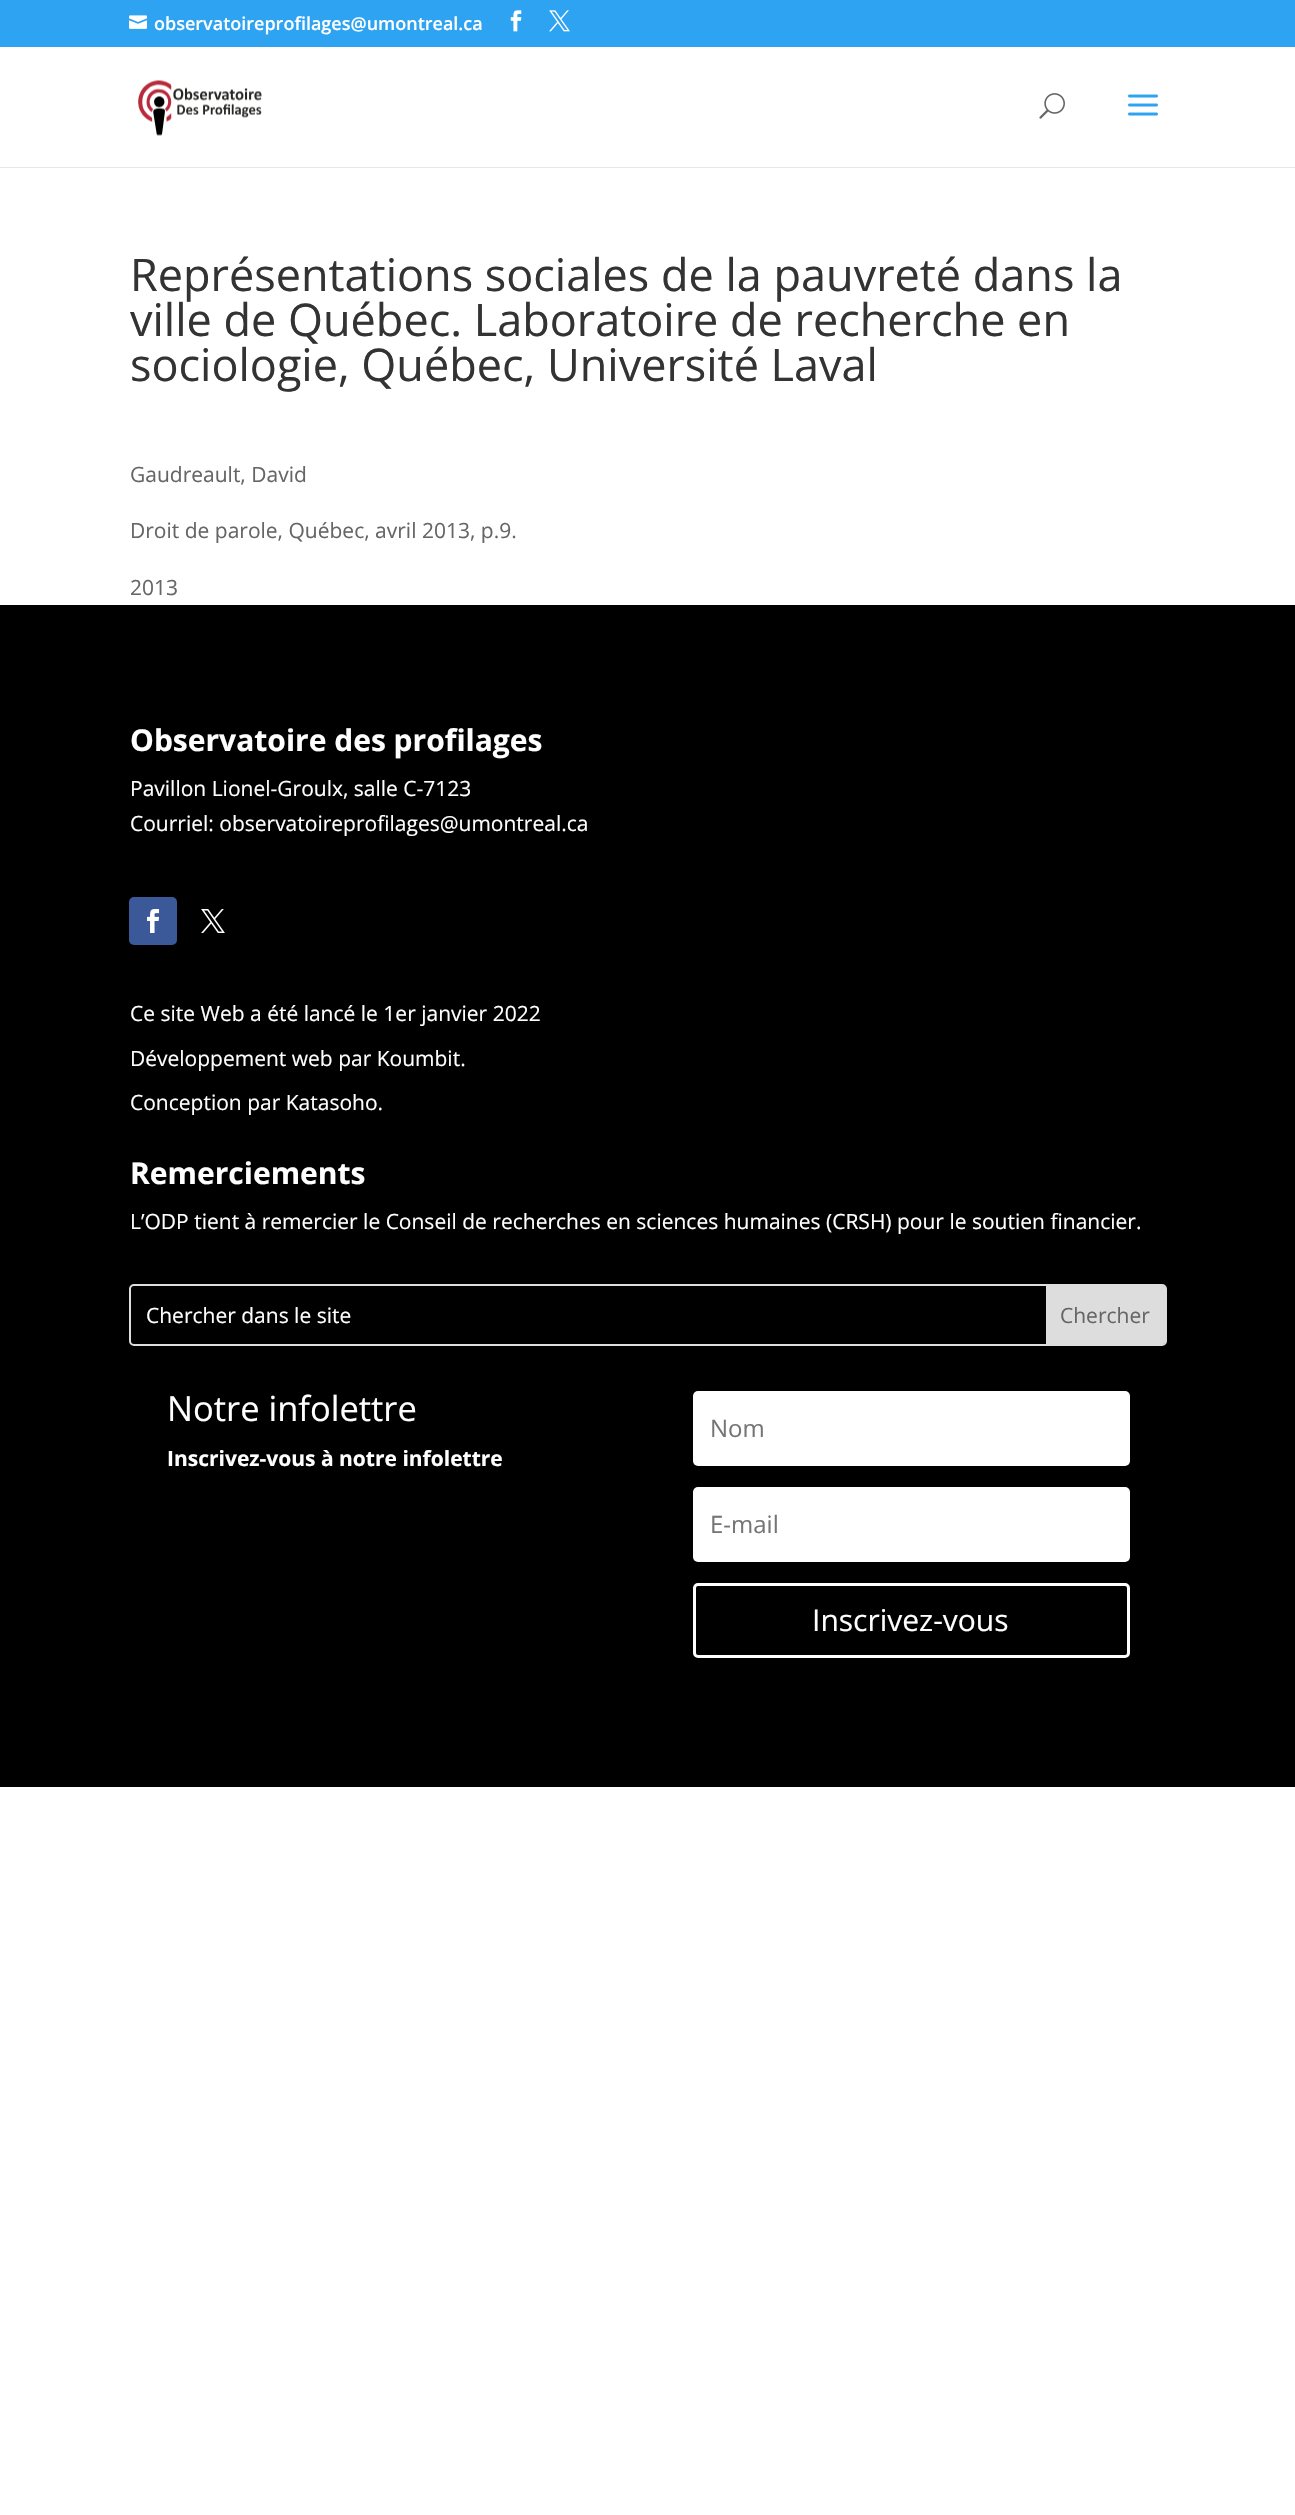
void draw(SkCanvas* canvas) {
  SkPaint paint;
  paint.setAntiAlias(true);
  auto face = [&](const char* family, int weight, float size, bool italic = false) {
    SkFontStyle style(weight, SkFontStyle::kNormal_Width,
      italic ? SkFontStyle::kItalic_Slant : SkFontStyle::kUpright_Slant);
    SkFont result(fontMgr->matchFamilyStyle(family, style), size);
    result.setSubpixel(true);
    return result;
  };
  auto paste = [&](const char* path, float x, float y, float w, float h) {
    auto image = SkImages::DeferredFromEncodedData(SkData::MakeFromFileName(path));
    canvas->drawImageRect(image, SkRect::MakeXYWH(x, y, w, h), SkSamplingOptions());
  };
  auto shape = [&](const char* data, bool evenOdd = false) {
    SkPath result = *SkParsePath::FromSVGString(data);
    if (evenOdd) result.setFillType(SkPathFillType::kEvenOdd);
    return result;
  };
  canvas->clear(0xffffffff);
  paint.setColor(0xff2ea3f2);
  canvas->drawRect(SkRect::MakeXYWH(0, 0, 1295, 47), paint);
  paste("img/1.png", 129, 15, 18, 14);
  paste("img/2.png", 510, 10, 12, 22);
  paste("img/3.png", 549, 10, 21, 22);
  paint.setColor(0xffe6e6e6);
  canvas->drawRect(SkRect::MakeXYWH(0, 167, 1295, 1), paint);
  paste("img/4.png", 138, 80, 124, 56);
  paste("img/5.png", 1039, 93, 26, 26);
  paste("img/6.png", 1128, 94, 30, 22);
  paint.setColor(0xff000000);
  canvas->drawRect(SkRect::MakeXYWH(0, 605, 1295, 1182), paint);
  paint.setColor(0xff3b5998);
  canvas->drawRoundRect(SkRect::MakeXYWH(129, 897, 48, 48), 5, 5, paint);
  paste("img/7.png", 147, 909, 13, 24);
  paste("img/8.png", 201, 909, 24, 24);
  paint.setStroke(true);
  paint.setStrokeWidth(2);
  paint.setColor(0xffdddddd);
  canvas->drawRoundRect(SkRect::MakeXYWH(130, 1285, 1036, 60), 4, 4, paint);
  paint.setStroke(false);
  canvas->drawPath(shape("M1046 1286H1163C1164.5 1286 1166 1287.5 1166 1289V1341C1166 1342.5 1164.5 1344 1163 1344H1046Z"), paint);
  paint.setColor(0xffffffff);
  canvas->drawRoundRect(SkRect::MakeXYWH(693, 1391, 437, 75), 5, 5, paint);
  canvas->drawRoundRect(SkRect::MakeXYWH(693, 1487, 437, 75), 5, 5, paint);
  paint.setStroke(true);
  paint.setStrokeWidth(3);
  canvas->drawRoundRect(SkRect::MakeXYWH(694.5f, 1584.5f, 434, 72), 3.5f, 3.5f, paint);
  auto f0 = face("Open Sans", 600, 18);
  paint.setStroke(false);
  canvas->drawString("observatoireprofilages@umontreal.ca", 154, 30, f0, paint);
  auto f1 = face("Open Sans", 400, 45);
  paint.setColor(0xff333333);
  {
    const struct { const char* s; float x, y; } items[] = {
      {"Représentations sociales de la pauvreté dans la", 130, 291},
      {"ville de Québec. Laboratoire de recherche en", 130, 336},
      {"sociologie, Québec, Université Laval", 130, 381},
    };
    for (auto [s, x, y] : items) {
      canvas->drawString(s, x, y, f1, paint);
    }
  }
  auto f2 = face("Open Sans", 400, 21);
  paint.setColor(0xff666666);
  {
    const struct { const char* s; float x, y; } items[] = {
      {"Gaudreault, David", 130, 482},
      {"Droit de parole, Québec, avril 2013, p.9.", 130, 538},
      {"2013", 130, 595},
    };
    for (auto [s, x, y] : items) {
      canvas->drawString(s, x, y, f2, paint);
    }
  }
  auto f3 = face("Open Sans", 700, 30);
  paint.setColor(0xffffffff);
  canvas->drawString("Observatoire des profilages", 130, 751, f3, paint);
  {
    const struct { const char* s; float x, y; } items[] = {
      {"Pavillon Lionel-Groulx, salle C-7123", 130, 796},
      {"Courriel: observatoireprofilages@umontreal.ca", 130, 831},
      {"Ce site Web a été lancé le 1er janvier 2022", 130, 1021},
      {"Développement web par Koumbit.", 130, 1066},
      {"Conception par Katasoho.", 130, 1110},
    };
    for (auto [s, x, y] : items) {
      canvas->drawString(s, x, y, f2, paint);
    }
  }
  canvas->drawString("Remerciements", 130, 1184, f3, paint);
  canvas->drawString("L’ODP tient à remercier le Conseil de recherches en sciences humaines (CRSH) pour le soutien financier.", 130, 1229, f2, paint);
  canvas->drawString("Chercher dans le site", 146, 1323, f2, paint);
  paint.setColor(0xff666666);
  canvas->drawString("Chercher", 1060, 1323, f2, paint);
  auto f4 = face("Open Sans", 400, 34.5f);
  paint.setColor(0xffffffff);
  canvas->drawString("Notre infolettre", 167, 1421, f4, paint);
  auto f5 = face("Open Sans", 700, 21);
  canvas->drawString("Inscrivez-vous à notre infolettre", 167, 1466, f5, paint);
  auto f6 = face("Open Sans", 400, 24);
  paint.setColor(0xff757575);
  canvas->drawString("Nom", 710, 1437, f6, paint);
  canvas->drawString("E-mail", 710, 1533, f6, paint);
  auto f7 = face("Open Sans", 400, 30);
  paint.setColor(0xffffffff);
  canvas->drawString("Inscrivez-vous", 812, 1631, f7, paint);
}
